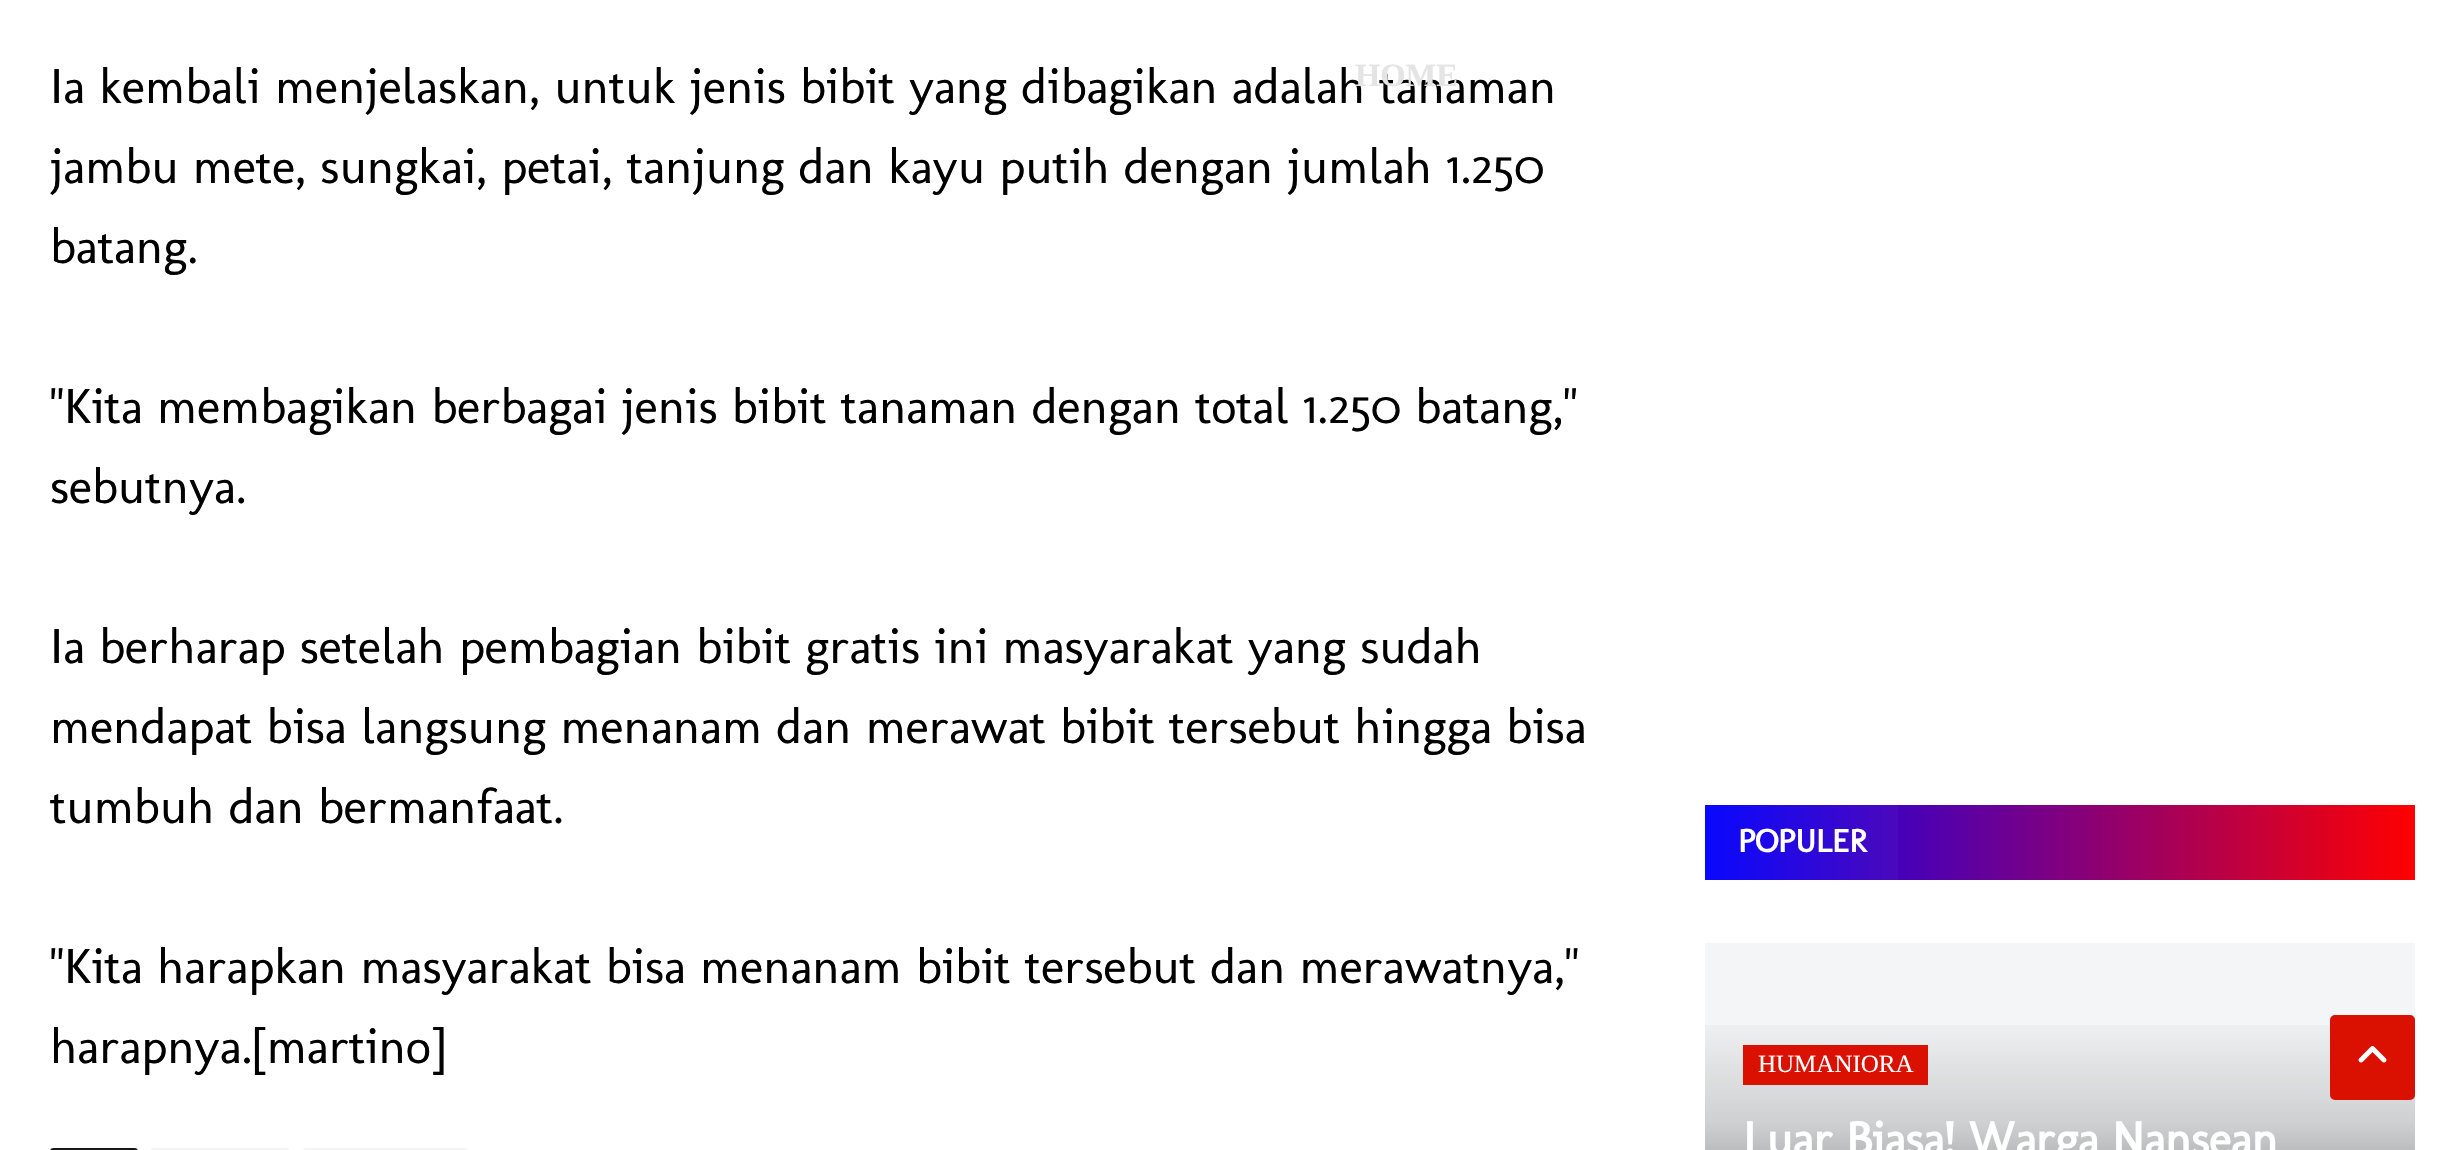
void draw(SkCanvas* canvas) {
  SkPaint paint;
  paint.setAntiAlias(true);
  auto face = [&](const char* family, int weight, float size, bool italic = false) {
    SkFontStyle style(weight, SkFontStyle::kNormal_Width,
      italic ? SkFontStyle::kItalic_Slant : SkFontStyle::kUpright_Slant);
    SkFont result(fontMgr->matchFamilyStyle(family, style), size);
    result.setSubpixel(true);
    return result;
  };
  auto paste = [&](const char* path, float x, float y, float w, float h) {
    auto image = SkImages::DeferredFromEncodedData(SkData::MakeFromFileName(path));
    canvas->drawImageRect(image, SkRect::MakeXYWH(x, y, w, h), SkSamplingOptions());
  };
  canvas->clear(0xffffffff);
  paint.setColor(0xff161618);
  canvas->drawRoundRect(SkRect::MakeXYWH(50, 1148, 88, 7), 5, 5, paint);
  paint.setColor(0xfff3f5f5);
  canvas->drawRoundRect(SkRect::MakeXYWH(150, 1148, 140, 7), 5, 5, paint);
  canvas->drawRoundRect(SkRect::MakeXYWH(303, 1148, 165, 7), 5, 5, paint);
  {
    const SkColor colors[] = {0xff0000ff, 0xffff0000};
    const float stops[] = {0, 1};
    const SkPoint ends[] = {{1705, 843}, {2415, 843}};
    paint.setShader(SkGradientShader::MakeLinear(ends, colors, stops, 2, SkTileMode::kClamp));
    paint.setAlpha(255);
  }
  canvas->drawRect(SkRect::MakeXYWH(1898, 805, 517, 75), paint);
  {
    const SkColor colors[] = {0xff0808ff, 0xffff0808};
    const float stops[] = {0, 1};
    const SkPoint ends[] = {{1705, 843}, {2415, 843}};
    paint.setShader(SkGradientShader::MakeLinear(ends, colors, stops, 2, SkTileMode::kClamp));
    paint.setAlpha(255);
  }
  canvas->drawRect(SkRect::MakeXYWH(1705, 805, 193, 75), paint);
  paint.setShader(nullptr);
  paint.setColor(0xfff3f5f6);
  canvas->drawRect(SkRect::MakeXYWH(1705, 943, 710, 90), paint);
  {
    const SkColor colors[] = {0xfff3f5f6, 0xff7a7a7b};
    const float stops[] = {0.25f, 1};
    const SkPoint ends[] = {{2060, 1033}, {2060, 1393}};
    paint.setShader(SkGradientShader::MakeLinear(ends, colors, stops, 2, SkTileMode::kClamp));
    paint.setAlpha(255);
  }
  canvas->drawRect(SkRect::MakeXYWH(1705, 1033, 710, 117), paint);
  {
    const SkColor colors[] = {0x00000000, 0x80000000};
    const float stops[] = {0, 1};
    const SkPoint ends[] = {{2060, 1008}, {2060, 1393}};
    paint.setShader(SkGradientShader::MakeLinear(ends, colors, stops, 2, SkTileMode::kClamp));
    paint.setAlpha(255);
  }
  canvas->drawRect(SkRect::MakeXYWH(1705, 1025, 710, 125), paint);
  paint.setShader(nullptr);
  paint.setColor(0xffda1000);
  canvas->drawRect(SkRect::MakeXYWH(1743, 1045, 185, 40), paint);
  canvas->drawRoundRect(SkRect::MakeXYWH(2330, 1015, 85, 85), 5, 5, paint);
  paste("img/1.png", 2358, 1046, 29, 17);
  auto f0 = face("Molengo", 400, 50);
  paint.setColor(0xff000000);
  canvas->drawString("Ia kembali menjelaskan, untuk jenis bibit yang dibagikan adalah tanaman", 50, 103, f0, paint);
  auto f1 = face("Liberation Serif", 700, 32.5f);
  paint.setColor(0xffe4e4e4);
  canvas->drawString("HOME", 1355, 86, f1, paint);
  paint.setColor(0xff000000);
  {
    const struct { const char* s; float x, y; } items[] = {
      {"jambu mete, sungkai, petai, tanjung dan kayu putih dengan jumlah 1.250", 50, 183},
      {"batang.", 50, 263},
      {"\"Kita membagikan berbagai jenis bibit tanaman dengan total 1.250 batang,\"", 50, 423},
      {"sebutnya.", 50, 503},
      {"Ia berharap setelah pembagian bibit gratis ini masyarakat yang sudah", 50, 663},
      {"mendapat bisa langsung menanam dan merawat bibit tersebut hingga bisa", 50, 743},
      {"tumbuh dan bermanfaat.", 50, 823},
      {"\"Kita harapkan masyarakat bisa menanam bibit tersebut dan merawatnya,\"", 50, 983},
      {"harapnya.[martino]", 50, 1063},
    };
    for (auto [s, x, y] : items) {
      canvas->drawString(s, x, y, f0, paint);
    }
  }
  auto f2 = face("Molengo", 700, 32.5f);
  paint.setColor(0xffffffff);
  canvas->drawString("POPULER", 1738, 852, f2, paint);
  auto f3 = face("Liberation Serif", 400, 25);
  canvas->drawString("HUMANIORA", 1758, 1072, f3, paint);
  auto f4 = face("Molengo", 700, 47.5f);
  canvas->drawString("Luar Biasa! Warga Nansean", 1743, 1155, f4, paint);
}
